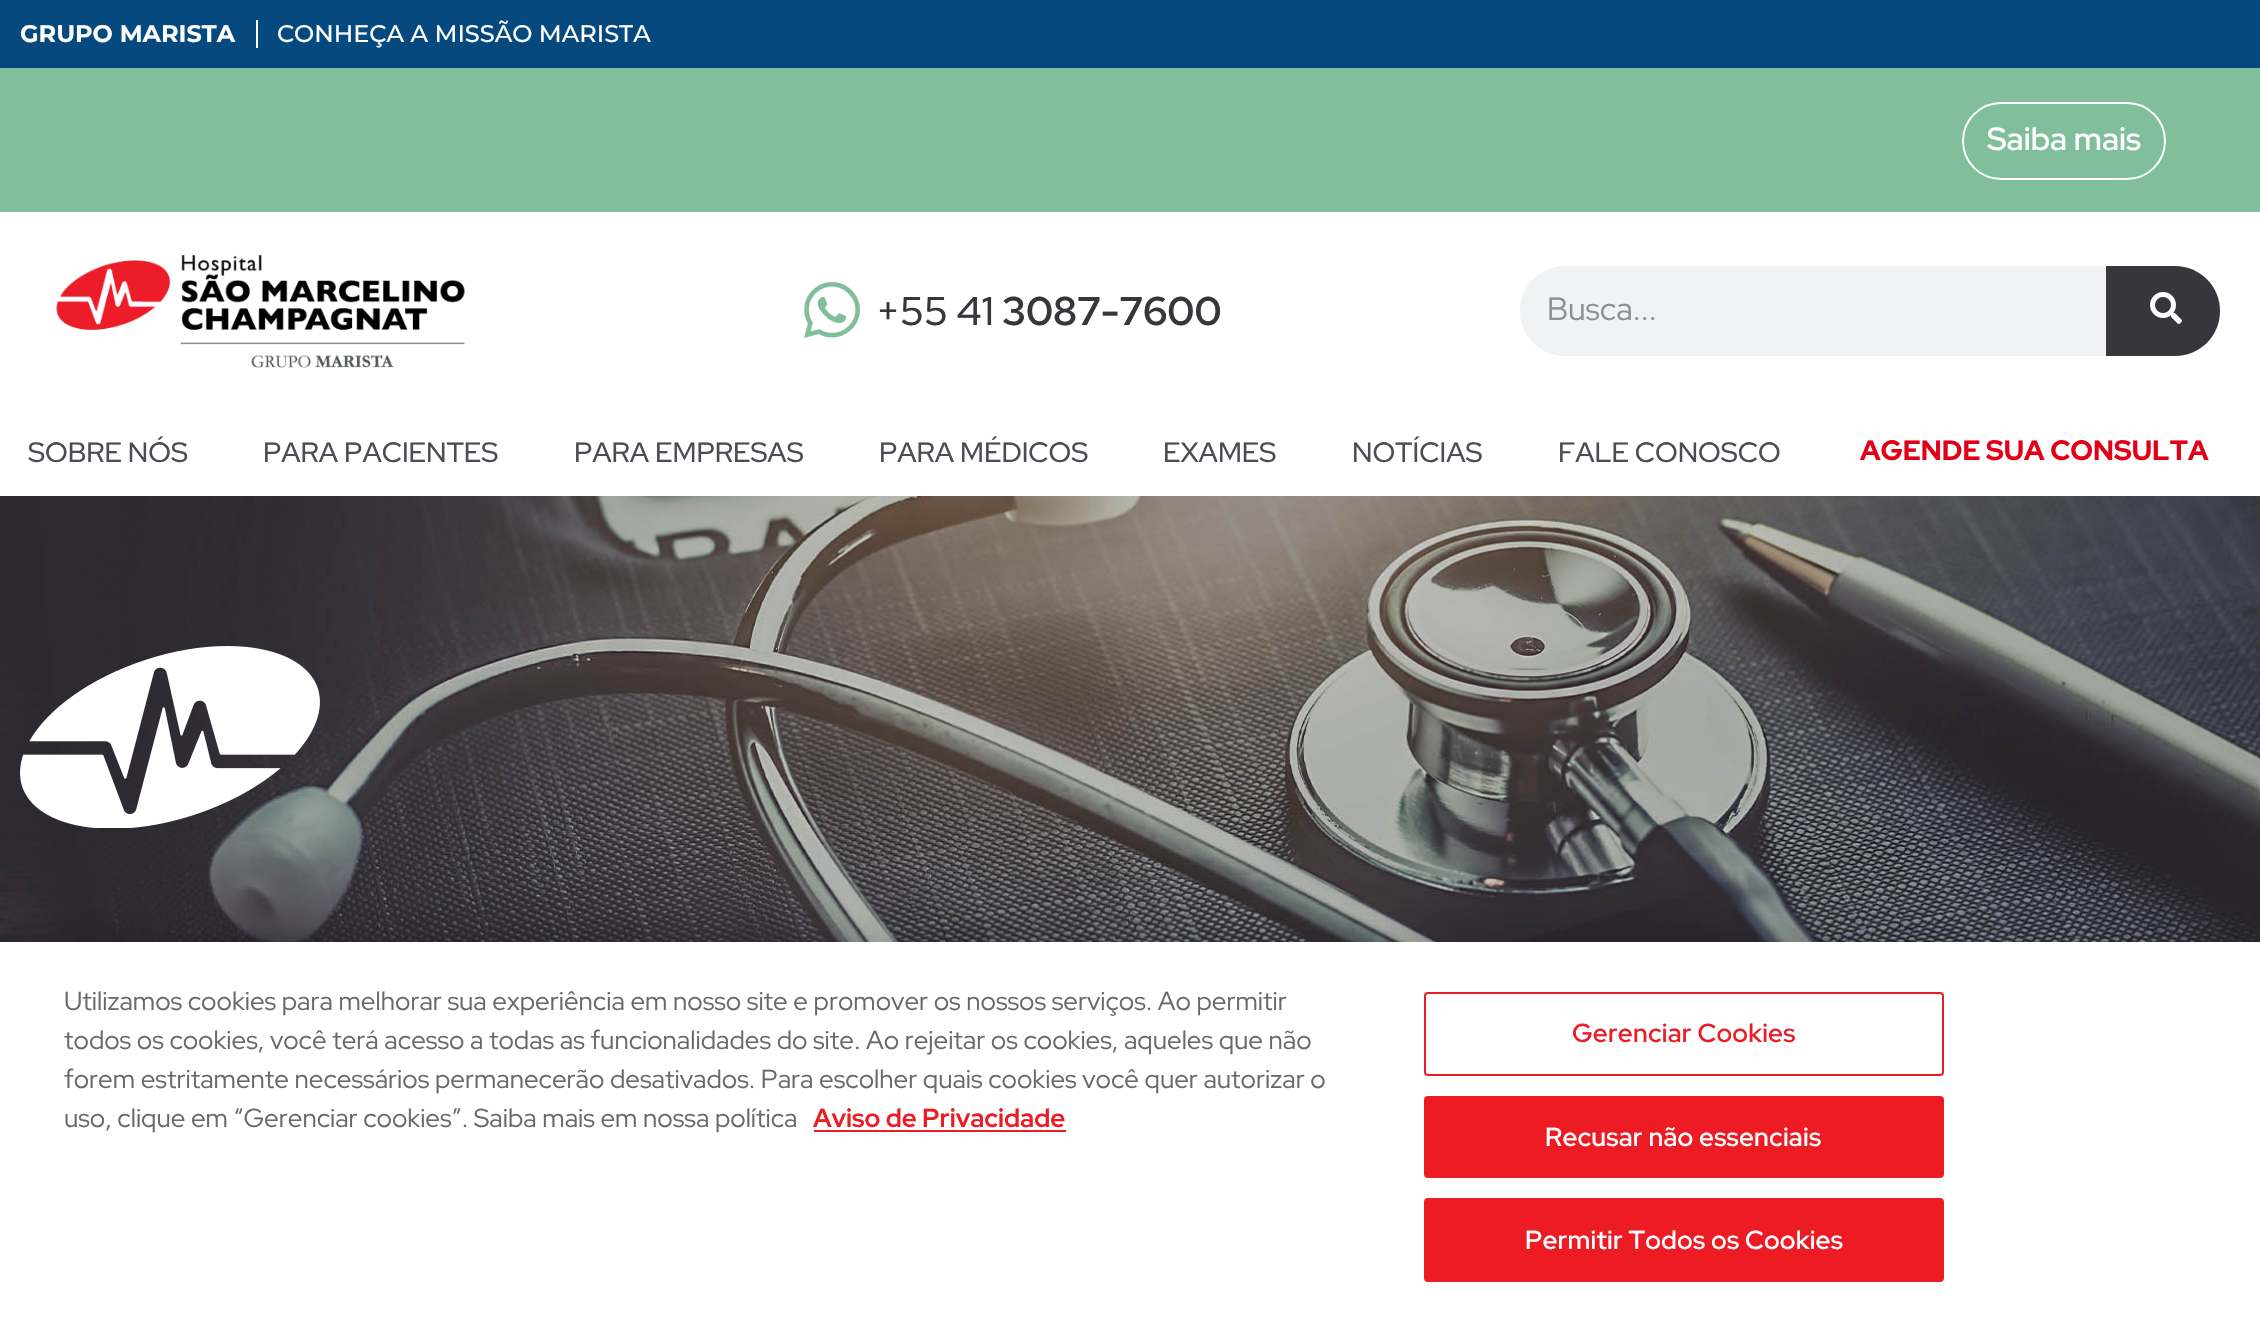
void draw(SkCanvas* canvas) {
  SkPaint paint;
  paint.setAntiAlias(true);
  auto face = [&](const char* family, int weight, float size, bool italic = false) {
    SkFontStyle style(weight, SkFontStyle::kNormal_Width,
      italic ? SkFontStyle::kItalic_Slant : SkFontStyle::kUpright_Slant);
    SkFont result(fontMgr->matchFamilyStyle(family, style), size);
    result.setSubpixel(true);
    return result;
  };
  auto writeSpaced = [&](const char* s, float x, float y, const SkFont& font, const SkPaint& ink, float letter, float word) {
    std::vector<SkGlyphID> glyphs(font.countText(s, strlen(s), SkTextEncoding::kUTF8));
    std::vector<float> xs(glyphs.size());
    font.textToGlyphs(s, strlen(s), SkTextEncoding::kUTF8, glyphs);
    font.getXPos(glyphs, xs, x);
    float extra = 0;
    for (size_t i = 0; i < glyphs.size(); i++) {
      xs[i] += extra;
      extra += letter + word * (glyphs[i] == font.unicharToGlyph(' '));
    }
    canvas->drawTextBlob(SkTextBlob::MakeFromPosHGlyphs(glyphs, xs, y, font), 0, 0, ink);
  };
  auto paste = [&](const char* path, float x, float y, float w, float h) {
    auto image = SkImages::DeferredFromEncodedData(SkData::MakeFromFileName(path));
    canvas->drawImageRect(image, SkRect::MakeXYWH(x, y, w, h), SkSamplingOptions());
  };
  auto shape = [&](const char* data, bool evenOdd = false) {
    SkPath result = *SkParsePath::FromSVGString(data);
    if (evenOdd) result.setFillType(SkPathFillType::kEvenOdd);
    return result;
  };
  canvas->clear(0xffffffff);
  {
    const struct { float x, y, w, h; SkColor color; } items[] = {
      {0, 0, 2260, 68, 0xff06497f},
      {256, 20, 2, 28, 0xffffffff},
      {0, 68, 2260, 144, 0xff81bf9c},
    };
    for (auto [x, y, w, h, color] : items) {
      paint.setColor(color);
      canvas->drawRect(SkRect::MakeXYWH(x, y, w, h), paint);
    }
  }
  paint.setStroke(true);
  paint.setStrokeWidth(2);
  paint.setColor(0xffffffff);
  canvas->drawRoundRect(SkRect::MakeXYWH(1963, 103, 202, 76), 38, 38, paint);
  paste("img/1.png", 56, 254, 409, 114);
  paste("img/2.png", 804, 282, 56, 56);
  paint.setStroke(false);
  paint.setColor(0xfff1f2f3);
  canvas->drawRoundRect(SkRect::MakeXYWH(1520, 266, 700, 90), 45, 45, paint);
  paint.setColor(0xff37373b);
  canvas->drawPath(shape("M2106 266H2175C2200 266 2220 286 2220 311C2220 336 2200 356 2175 356H2106Z"), paint);
  paste("img/3.png", 2150, 292, 32, 32);
  paste("img/4.png", 0, 496, 2260, 446);
  paste("img/5.png", 20, 646, 300, 182);
  paint.setColor(0x33000000);
  paint.setMaskFilter(SkMaskFilter::MakeBlur(kNormal_SkBlurStyle, 18));
  canvas->drawRect(SkRect::MakeXYWH(0, 942, 2260, 380), paint);
  paint.setMaskFilter(nullptr);
  paint.setColor(0xffffffff);
  canvas->drawRect(SkRect::MakeXYWH(0, 942, 2260, 380), paint);
  paint.setColor(0xffed1c24);
  canvas->drawRect(SkRect::MakeXYWH(814, 1130, 252, 2), paint);
  paint.setStroke(true);
  canvas->drawRoundRect(SkRect::MakeXYWH(1425, 993, 518, 82), 3, 3, paint);
  paint.setStroke(false);
  canvas->drawRoundRect(SkRect::MakeXYWH(1425, 1097, 518, 80), 3, 3, paint);
  paint.setStroke(true);
  canvas->drawRoundRect(SkRect::MakeXYWH(1425, 1097, 518, 80), 3, 3, paint);
  paint.setStroke(false);
  canvas->drawRoundRect(SkRect::MakeXYWH(1425, 1199, 518, 82), 3, 3, paint);
  paint.setStroke(true);
  canvas->drawRoundRect(SkRect::MakeXYWH(1425, 1199, 518, 82), 3, 3, paint);
  auto f0 = face("Montserrat", 700, 24);
  paint.setStroke(false);
  paint.setColor(0xffffffff);
  canvas->drawString("GRUPO MARISTA", 20, 42, f0, paint);
  auto f1 = face("Montserrat", 500, 24);
  canvas->drawString("CONHEÇA A MISSÃO MARISTA", 277, 42, f1, paint);
  auto f2 = face("Red Hat Display", 600, 32);
  canvas->drawString("Saiba mais", 1987, 150, f2, paint);
  auto f3 = face("Red Hat Display", 500, 40);
  paint.setColor(0xff37373b);
  canvas->drawString("+55 41", 876, 325, f3, paint);
  auto f4 = face("Red Hat Display", 700, 40);
  canvas->drawString("3087-7600", 1002, 325, f4, paint);
  auto f5 = face("Red Hat Display", 400, 32);
  paint.setColor(0xff8e8f92);
  canvas->drawString("Busca...", 1547, 320, f5, paint);
  auto f6 = face("Red Hat Display", 500, 28);
  paint.setColor(0xff4c4d52);
  {
    const struct { const char* s; float x, y; } items[] = {
      {"SOBRE NÓS", 28, 462},
      {"PARA PACIENTES", 263, 462},
      {"PARA EMPRESAS", 574, 462},
      {"PARA MÉDICOS", 879, 462},
      {"EXAMES", 1163, 462},
      {"NOTÍCIAS", 1352, 462},
      {"FALE CONOSCO", 1558, 462},
    };
    for (auto [s, x, y] : items) {
      canvas->drawString(s, x, y, f6, paint);
    }
  }
  auto f7 = face("Red Hat Display", 800, 28);
  paint.setColor(0xffe30016);
  canvas->drawString("AGENDE SUA CONSULTA", 1860, 460, f7, paint);
  auto f8 = face("Red Hat Display", 400, 26);
  paint.setColor(0xff696969);
  {
    const struct { const char* s; float x, y; } items[] = {
      {"Utilizamos cookies para melhorar sua experiência em nosso site e promover os nossos serviços. Ao permitir", 64, 1010},
      {"todos os cookies, você terá acesso a todas as funcionalidades do site. Ao rejeitar os cookies, aqueles que não", 64, 1049},
      {"forem estritamente necessários permanecerão desativados. Para escolher quais cookies você quer autorizar o", 64, 1088},
      {"uso, clique em “Gerenciar cookies”. Saiba mais em nossa política", 64, 1127},
    };
    for (auto [s, x, y] : items) {
      canvas->drawString(s, x, y, f8, paint);
    }
  }
  auto f9 = face("Red Hat Display", 700, 26);
  paint.setColor(0xffed1c24);
  canvas->drawString("Aviso de Privacidade", 813, 1127, f9, paint);
  auto f10 = face("Red Hat Display", 600, 26);
  writeSpaced("Gerenciar Cookies", 1572, 1042, f10, paint, 0.25f, 0);
  paint.setColor(0xffffffff);
  writeSpaced("Recusar não essenciais", 1545, 1146, f10, paint, 0.25f, 0);
  writeSpaced("Permitir Todos os Cookies", 1525, 1249, f10, paint, 0.25f, 0);
}
